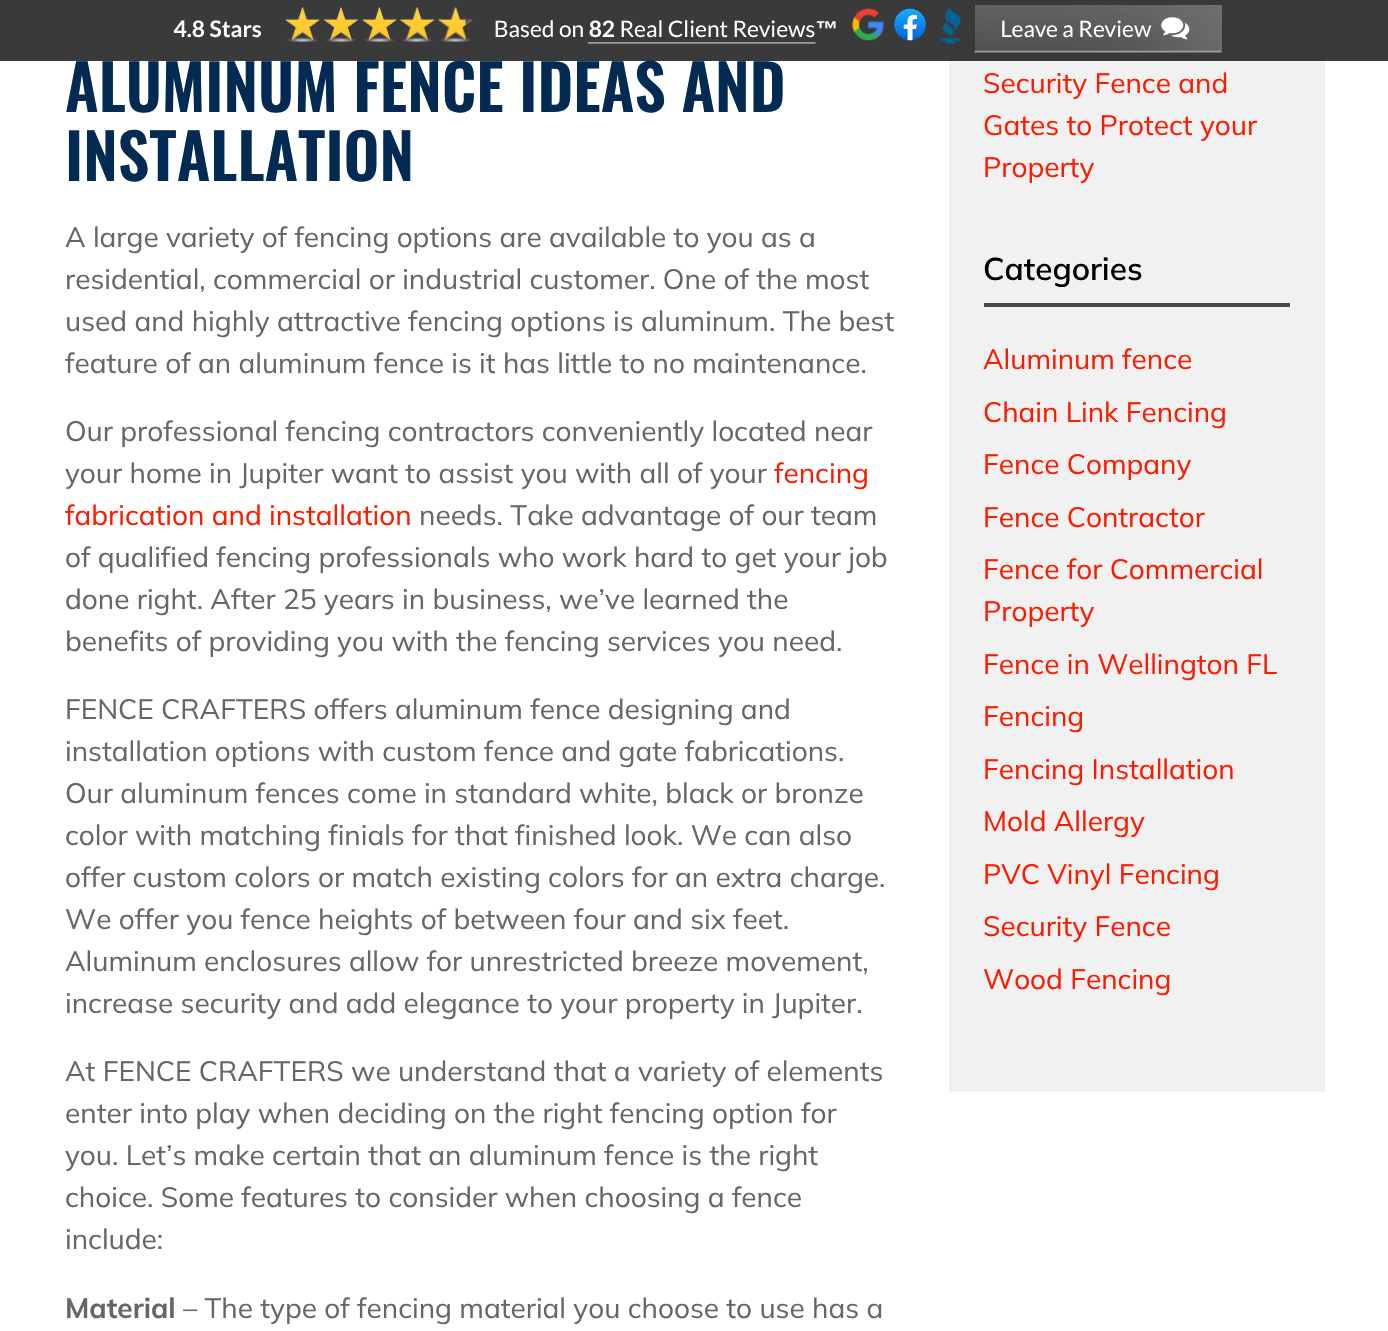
void draw(SkCanvas* canvas) {
  SkPaint paint;
  paint.setAntiAlias(true);
  auto face = [&](const char* family, int weight, float size, bool italic = false) {
    SkFontStyle style(weight, SkFontStyle::kNormal_Width,
      italic ? SkFontStyle::kItalic_Slant : SkFontStyle::kUpright_Slant);
    SkFont result(fontMgr->matchFamilyStyle(family, style), size);
    result.setSubpixel(true);
    return result;
  };
  auto paste = [&](const char* path, float x, float y, float w, float h) {
    auto image = SkImages::DeferredFromEncodedData(SkData::MakeFromFileName(path));
    canvas->drawImageRect(image, SkRect::MakeXYWH(x, y, w, h), SkSamplingOptions());
  };
  canvas->clear(0xffffffff);
  paint.setColor(0xfff1f1f1);
  canvas->drawRect(SkRect::MakeXYWH(949, 0, 376, 1092), paint);
  paint.setColor(0xff494949);
  canvas->drawRect(SkRect::MakeXYWH(984, 303, 306, 4), paint);
  auto f0 = face("Oswald", 600, 62.5f);
  paint.setColor(0xff032a52);
  canvas->drawString("ALUMINUM FENCE IDEAS AND", 65, 112, f0, paint);
  paint.setColor(0xe6252525);
  canvas->drawRect(SkRect::MakeXYWH(0, 0, 1388, 61), paint);
  paste("img/1.png", 173, 5, 1049, 48);
  paint.setColor(0xff032a52);
  canvas->drawString("INSTALLATION", 65, 181, f0, paint);
  auto f1 = face("Mulish", 400, 28);
  paint.setColor(0xff666666);
  {
    const struct { const char* s; float x, y; } items[] = {
      {"A large variety of fencing options are available to you as a", 65, 247},
      {"residential, commercial or industrial customer. One of the most", 65, 289},
      {"used and highly attractive fencing options is aluminum. The best", 65, 331},
      {"feature of an aluminum fence is it has little to no maintenance.", 65, 373},
      {"Our professional fencing contractors conveniently located near", 65, 441},
      {"your home in Jupiter want to assist you with all of your", 65, 483},
    };
    for (auto [s, x, y] : items) {
      canvas->drawString(s, x, y, f1, paint);
    }
  }
  paint.setColor(0xfffd1b00);
  canvas->drawString("fencing", 774, 483, f1, paint);
  canvas->drawString("fabrication and installation", 65, 525, f1, paint);
  paint.setColor(0xff666666);
  {
    const struct { const char* s; float x, y; } items[] = {
      {"needs. Take advantage of our team", 419, 525},
      {"of qualified fencing professionals who work hard to get your job", 65, 567},
      {"done right. After 25 years in business, we’ve learned the", 65, 609},
      {"benefits of providing you with the fencing services you need.", 65, 651},
      {"FENCE CRAFTERS offers aluminum fence designing and", 65, 719},
      {"installation options with custom fence and gate fabrications.", 65, 761},
      {"Our aluminum fences come in standard white, black or bronze", 65, 803},
      {"color with matching finials for that finished look. We can also", 65, 845},
      {"offer custom colors or match existing colors for an extra charge.", 65, 887},
      {"We offer you fence heights of between four and six feet.", 65, 929},
      {"Aluminum enclosures allow for unrestricted breeze movement,", 65, 971},
      {"increase security and add elegance to your property in Jupiter.", 65, 1013},
      {"At FENCE CRAFTERS we understand that a variety of elements", 65, 1081},
      {"enter into play when deciding on the right fencing option for", 65, 1123},
      {"you. Let’s make certain that an aluminum fence is the right", 65, 1165},
      {"choice. Some features to consider when choosing a fence", 65, 1207},
      {"include:", 65, 1249},
    };
    for (auto [s, x, y] : items) {
      canvas->drawString(s, x, y, f1, paint);
    }
  }
  auto f2 = face("Mulish", 700, 28);
  canvas->drawString("Material", 65, 1318, f2, paint);
  canvas->drawString("– The type of fencing material you choose to use has a", 183, 1318, f1, paint);
  paint.setColor(0xfffd1b00);
  {
    const struct { const char* s; float x, y; } items[] = {
      {"Security Fence and", 983, 93},
      {"Gates to Protect your", 983, 135},
      {"Property", 983, 177},
    };
    for (auto [s, x, y] : items) {
      canvas->drawString(s, x, y, f1, paint);
    }
  }
  auto f3 = face("Mulish", 600, 31.5f);
  paint.setColor(0xff000000);
  canvas->drawString("Categories", 983, 280, f3, paint);
  paint.setColor(0xfffd1b00);
  {
    const struct { const char* s; float x, y; } items[] = {
      {"Aluminum fence", 983, 369},
      {"Chain Link Fencing", 983, 422},
      {"Fence Company", 983, 474},
      {"Fence Contractor", 983, 527},
      {"Fence for Commercial", 983, 579},
      {"Property", 983, 621},
      {"Fence in Wellington FL", 983, 674},
      {"Fencing", 983, 726},
      {"Fencing Installation", 983, 779},
      {"Mold Allergy", 983, 831},
      {"PVC Vinyl Fencing", 983, 884},
      {"Security Fence", 983, 936},
      {"Wood Fencing", 983, 989},
    };
    for (auto [s, x, y] : items) {
      canvas->drawString(s, x, y, f1, paint);
    }
  }
}
